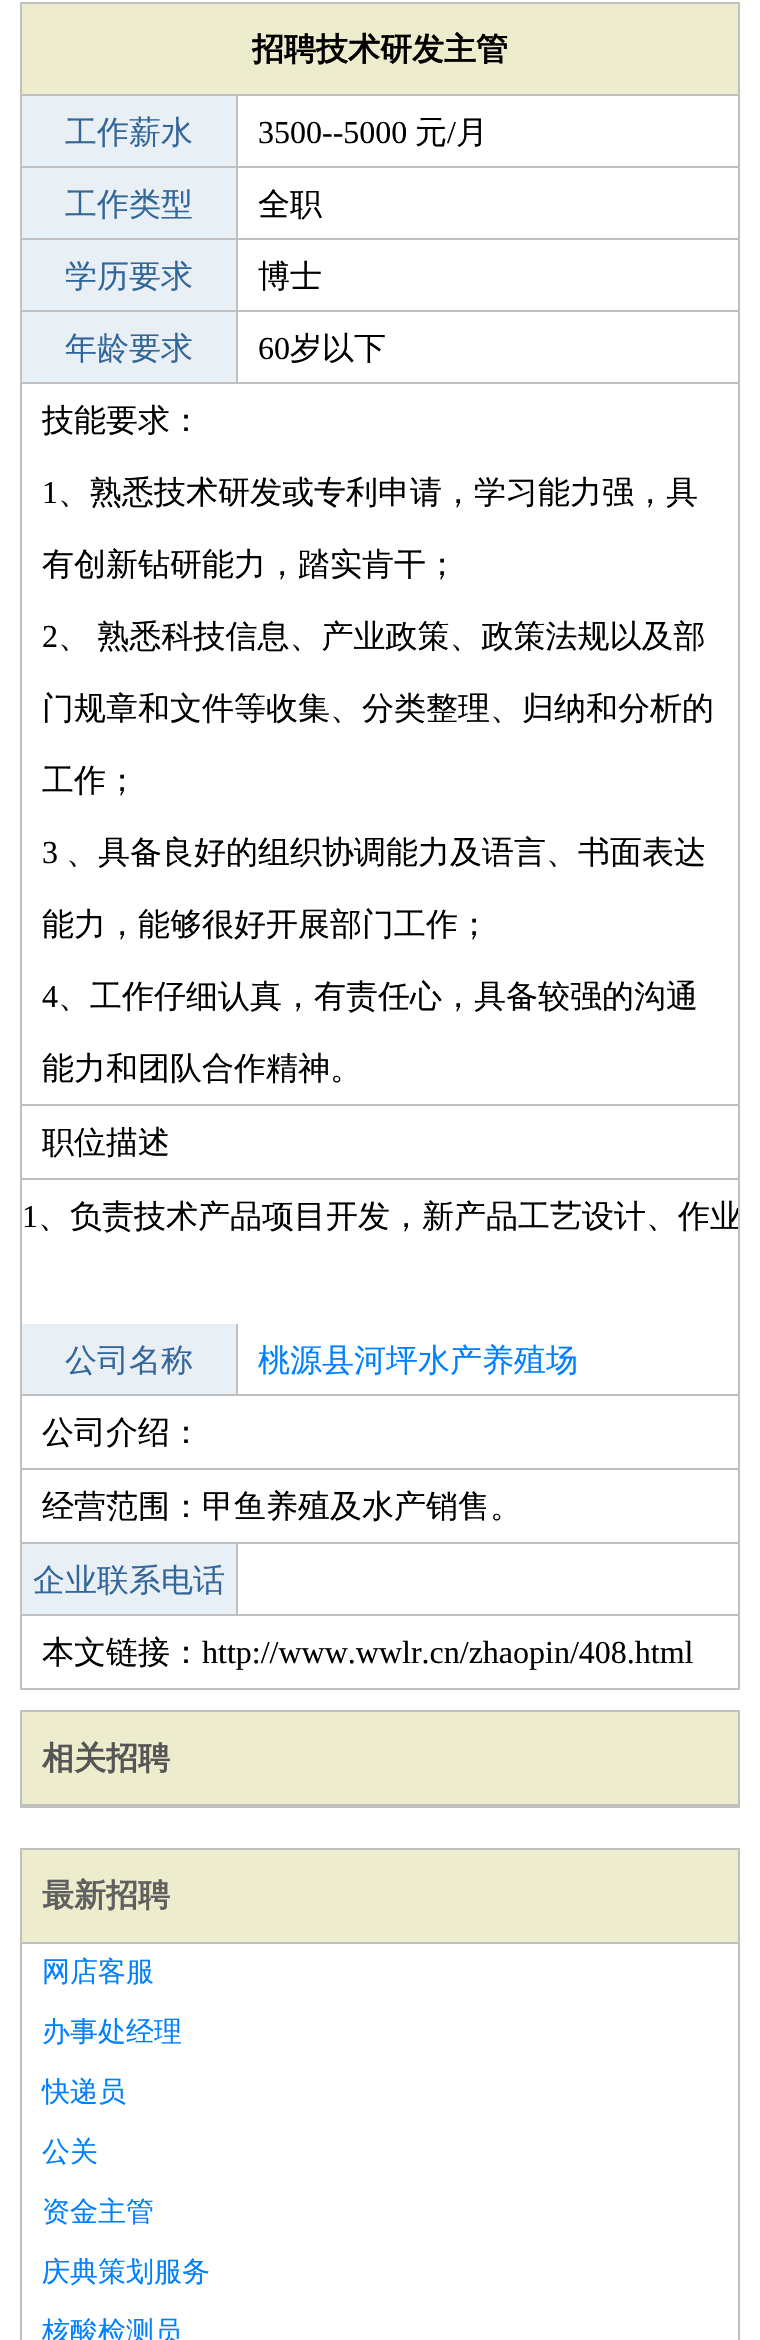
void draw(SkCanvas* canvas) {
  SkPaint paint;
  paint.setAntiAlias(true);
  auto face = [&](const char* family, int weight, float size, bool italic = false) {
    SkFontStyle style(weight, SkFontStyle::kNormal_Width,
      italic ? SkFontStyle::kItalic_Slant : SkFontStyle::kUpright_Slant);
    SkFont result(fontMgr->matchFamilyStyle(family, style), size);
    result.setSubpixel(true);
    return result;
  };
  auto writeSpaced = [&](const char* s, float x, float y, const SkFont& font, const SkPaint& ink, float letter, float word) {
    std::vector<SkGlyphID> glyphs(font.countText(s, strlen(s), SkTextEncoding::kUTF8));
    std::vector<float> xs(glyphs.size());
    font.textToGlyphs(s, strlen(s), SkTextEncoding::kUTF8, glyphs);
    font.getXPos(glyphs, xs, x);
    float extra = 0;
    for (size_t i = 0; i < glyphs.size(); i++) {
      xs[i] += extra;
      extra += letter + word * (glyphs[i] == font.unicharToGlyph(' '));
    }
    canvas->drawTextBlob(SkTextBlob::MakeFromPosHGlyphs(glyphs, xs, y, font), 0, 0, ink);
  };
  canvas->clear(0xffffffff);
  paint.setStroke(true);
  paint.setStrokeWidth(2);
  paint.setColor(0xffc0c0c0);
  canvas->drawRect(SkRect::MakeXYWH(21, 3, 718, 1686), paint);
  paint.setStroke(false);
  {
    const struct { float x, y, w, h; SkColor color; } items[] = {
      {22, 4, 716, 90, 0xffededcd},
      {22, 94, 716, 2, 0xffc0c0c0},
      {22, 96, 214, 70, 0xffe8eff5},
      {236, 96, 2, 288, 0xffc0c0c0},
      {22, 166, 716, 2, 0xffc0c0c0},
      {22, 168, 214, 70, 0xffe8eff5},
      {22, 238, 716, 2, 0xffc0c0c0},
      {22, 240, 214, 70, 0xffe8eff5},
      {22, 310, 716, 2, 0xffc0c0c0},
      {22, 312, 214, 70, 0xffe8eff5},
      {22, 382, 716, 2, 0xffc0c0c0},
      {22, 1104, 716, 2, 0xffc0c0c0},
      {22, 1178, 716, 2, 0xffc0c0c0},
      {22, 1324, 214, 70, 0xffe8eff5},
      {236, 1324, 2, 72, 0xffc0c0c0},
      {22, 1394, 716, 2, 0xffc0c0c0},
      {22, 1468, 716, 2, 0xffc0c0c0},
      {22, 1542, 716, 2, 0xffc0c0c0},
      {22, 1544, 214, 70, 0xffe8eff5},
      {236, 1544, 2, 72, 0xffc0c0c0},
      {22, 1614, 716, 2, 0xffc0c0c0},
    };
    for (auto [x, y, w, h, color] : items) {
      paint.setColor(color);
      canvas->drawRect(SkRect::MakeXYWH(x, y, w, h), paint);
    }
  }
  paint.setStroke(true);
  canvas->drawRect(SkRect::MakeXYWH(21, 1711, 718, 96), paint);
  paint.setStroke(false);
  paint.setColor(0xffededcd);
  canvas->drawRect(SkRect::MakeXYWH(22, 1712, 716, 92), paint);
  paint.setColor(0xffc0c0c0);
  canvas->drawRect(SkRect::MakeXYWH(22, 1804, 716, 2), paint);
  paint.setStroke(true);
  canvas->drawRect(SkRect::MakeXYWH(21, 1849, 718, 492), paint);
  paint.setStroke(false);
  paint.setColor(0xffededcd);
  canvas->drawRect(SkRect::MakeXYWH(22, 1850, 716, 92), paint);
  paint.setColor(0xffc0c0c0);
  canvas->drawRect(SkRect::MakeXYWH(22, 1942, 716, 2), paint);
  auto f0 = face("WenQuanYi Zen Hei", 700, 32);
  paint.setColor(0xff000000);
  canvas->drawString("招聘技术研发主管", 252, 60, f0, paint);
  auto f1 = face("WenQuanYi Zen Hei", 500, 32);
  paint.setColor(0xff336699);
  canvas->drawString("工作薪水", 65, 143, f1, paint);
  auto f2 = face("Liberation Serif", 400, 32);
  paint.setColor(0xff000000);
  canvas->drawString("3500--5000", 258, 143, f2, paint);
  canvas->drawString("元", 415, 143, f1, paint);
  canvas->drawString("/", 447, 143, f2, paint);
  canvas->drawString("月", 456, 143, f1, paint);
  paint.setColor(0xff336699);
  canvas->drawString("工作类型", 65, 215, f1, paint);
  paint.setColor(0xff000000);
  canvas->drawString("全职", 258, 215, f1, paint);
  paint.setColor(0xff336699);
  canvas->drawString("学历要求", 65, 287, f1, paint);
  paint.setColor(0xff000000);
  canvas->drawString("博士", 258, 287, f1, paint);
  paint.setColor(0xff336699);
  canvas->drawString("年龄要求", 65, 359, f1, paint);
  paint.setColor(0xff000000);
  canvas->drawString("60", 258, 359, f2, paint);
  canvas->drawString("岁以下", 290, 359, f1, paint);
  canvas->drawString("技能要求：", 42, 431, f1, paint);
  canvas->drawString("1", 42, 503, f2, paint);
  canvas->drawString("、熟悉技术研发或专利申请，学习能力强，具", 58, 503, f1, paint);
  canvas->drawString("有创新钻研能力，踏实肯干；", 42, 575, f1, paint);
  canvas->drawString("2", 42, 647, f2, paint);
  writeSpaced("、 熟悉科技信息、产业政策、政策法规以及部", 58, 647, f1, paint, 0, -2);
  canvas->drawString("门规章和文件等收集、分类整理、归纳和分析的", 42, 719, f1, paint);
  canvas->drawString("工作；", 42, 791, f1, paint);
  canvas->drawString("3", 42, 863, f2, paint);
  canvas->drawString("、具备良好的组织协调能力及语言、书面表达", 66, 863, f1, paint);
  canvas->drawString("能力，能够很好开展部门工作；", 42, 935, f1, paint);
  canvas->drawString("4", 42, 1007, f2, paint);
  {
    const struct { const char* s; float x, y; } items[] = {
      {"、工作仔细认真，有责任心，具备较强的沟通", 58, 1007},
      {"能力和团队合作精神。", 42, 1079},
      {"职位描述", 42, 1153},
    };
    for (auto [s, x, y] : items) {
      canvas->drawString(s, x, y, f1, paint);
    }
  }
  canvas->drawString("1", 22, 1227, f2, paint);
  canvas->save();
  canvas->clipRect(SkRect::MakeXYWH(22, 1180, 716, 72));
  canvas->drawString("、负责技术产品项目开发，新产品工艺设计、作业", 38, 1227, f1, paint);
  canvas->restore();
  paint.setColor(0xff336699);
  canvas->drawString("公司名称", 65, 1371, f1, paint);
  paint.setColor(0xff0080ff);
  canvas->drawString("桃源县河坪水产养殖场", 258, 1371, f1, paint);
  paint.setColor(0xff000000);
  canvas->drawString("公司介绍：", 42, 1443, f1, paint);
  canvas->drawString("经营范围：甲鱼养殖及水产销售。", 42, 1517, f1, paint);
  paint.setColor(0xff336699);
  canvas->drawString("企业联系电话", 33, 1591, f1, paint);
  paint.setColor(0xff000000);
  canvas->drawString("本文链接：", 42, 1663, f1, paint);
  canvas->drawString("http://www.wwlr.cn/zhaopin/408.html", 202, 1663, f2, paint);
  paint.setColor(0xff555555);
  canvas->drawString("相关招聘", 42, 1769, f0, paint);
  paint.setColor(0xff606060);
  canvas->drawString("最新招聘", 42, 1906, f0, paint);
  auto f3 = face("WenQuanYi Zen Hei", 500, 28);
  paint.setColor(0xff0080ff);
  {
    const struct { const char* s; float x, y; } items[] = {
      {"网店客服", 42, 1981},
      {"办事处经理", 42, 2041},
      {"快递员", 42, 2101},
      {"公关", 42, 2161},
      {"资金主管", 42, 2221},
      {"庆典策划服务", 42, 2281},
      {"核酸检测员", 42, 2341},
    };
    for (auto [s, x, y] : items) {
      canvas->drawString(s, x, y, f3, paint);
    }
  }
}
